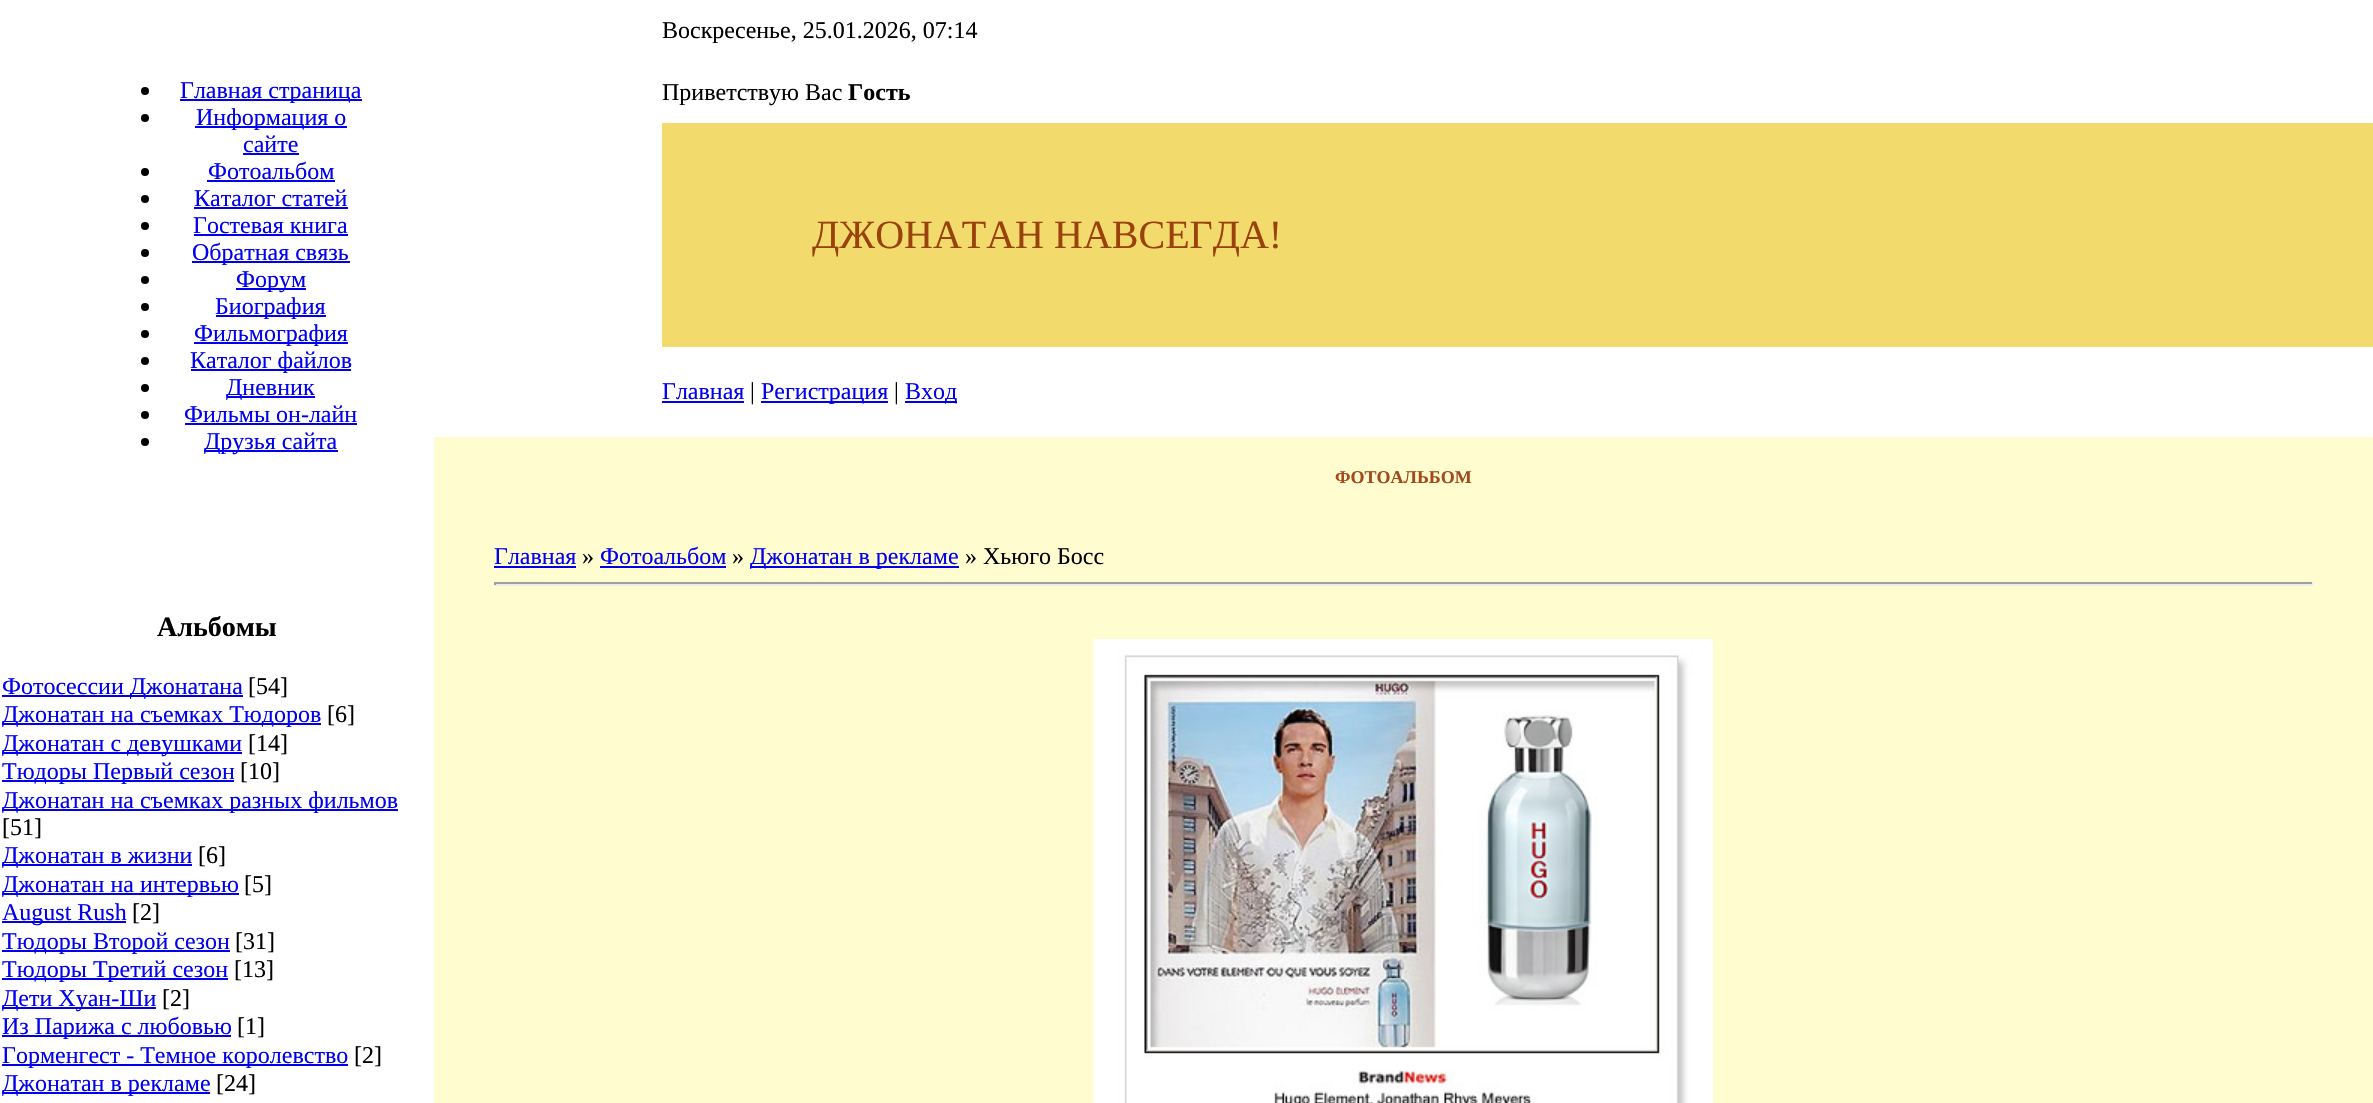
void draw(SkCanvas* canvas) {
  SkPaint paint;
  paint.setAntiAlias(true);
  auto face = [&](const char* family, int weight, float size, bool italic = false) {
    SkFontStyle style(weight, SkFontStyle::kNormal_Width,
      italic ? SkFontStyle::kItalic_Slant : SkFontStyle::kUpright_Slant);
    SkFont result(fontMgr->matchFamilyStyle(family, style), size);
    result.setSubpixel(true);
    return result;
  };
  auto paste = [&](const char* path, float x, float y, float w, float h) {
    auto image = SkImages::DeferredFromEncodedData(SkData::MakeFromFileName(path));
    canvas->drawImageRect(image, SkRect::MakeXYWH(x, y, w, h), SkSamplingOptions());
  };
  canvas->clear(0xffffffff);
  paint.setColor(0xff000000);
  canvas->drawCircle(145, 91, 4, paint);
  paint.setColor(0xff0000ee);
  canvas->drawRect(SkRect::MakeXYWH(180, 99, 182, 2), paint);
  paint.setColor(0xff000000);
  canvas->drawCircle(145, 118, 4, paint);
  paint.setColor(0xff0000ee);
  canvas->drawRect(SkRect::MakeXYWH(195, 126, 152, 2), paint);
  canvas->drawRect(SkRect::MakeXYWH(243, 153, 56, 2), paint);
  paint.setColor(0xff000000);
  canvas->drawCircle(145, 172, 4, paint);
  paint.setColor(0xff0000ee);
  canvas->drawRect(SkRect::MakeXYWH(207, 180, 128, 2), paint);
  paint.setColor(0xff000000);
  canvas->drawCircle(145, 199, 4, paint);
  paint.setColor(0xff0000ee);
  canvas->drawRect(SkRect::MakeXYWH(194, 207, 154, 2), paint);
  paint.setColor(0xff000000);
  canvas->drawCircle(145, 226, 4, paint);
  paint.setColor(0xff0000ee);
  canvas->drawRect(SkRect::MakeXYWH(194, 234, 154, 2), paint);
  paint.setColor(0xff000000);
  canvas->drawCircle(145, 253, 4, paint);
  paint.setColor(0xff0000ee);
  canvas->drawRect(SkRect::MakeXYWH(192, 261, 158, 2), paint);
  paint.setColor(0xff000000);
  canvas->drawCircle(145, 280, 4, paint);
  paint.setColor(0xff0000ee);
  canvas->drawRect(SkRect::MakeXYWH(236, 288, 70, 2), paint);
  paint.setColor(0xff000000);
  canvas->drawCircle(145, 307, 4, paint);
  paint.setColor(0xff0000ee);
  canvas->drawRect(SkRect::MakeXYWH(216, 315, 110, 2), paint);
  paint.setColor(0xff000000);
  canvas->drawCircle(145, 334, 4, paint);
  paint.setColor(0xff0000ee);
  canvas->drawRect(SkRect::MakeXYWH(194, 342, 154, 2), paint);
  paint.setColor(0xff000000);
  canvas->drawCircle(145, 361, 4, paint);
  paint.setColor(0xff0000ee);
  canvas->drawRect(SkRect::MakeXYWH(191, 369, 160, 2), paint);
  paint.setColor(0xff000000);
  canvas->drawCircle(145, 388, 4, paint);
  paint.setColor(0xff0000ee);
  canvas->drawRect(SkRect::MakeXYWH(227, 396, 88, 2), paint);
  paint.setColor(0xff000000);
  canvas->drawCircle(145, 415, 4, paint);
  paint.setColor(0xff0000ee);
  canvas->drawRect(SkRect::MakeXYWH(185, 423, 172, 2), paint);
  paint.setColor(0xff000000);
  canvas->drawCircle(145, 442, 4, paint);
  {
    const struct { float x, y, w, h; SkColor color; } items[] = {
      {204, 450, 134, 2, 0xff0000ee},
      {2, 695, 241, 2, 0xff0000ee},
      {2, 723, 319, 2, 0xff0000ee},
      {2, 752, 240, 2, 0xff0000ee},
      {2, 780, 232, 2, 0xff0000ee},
      {2, 809, 396, 2, 0xff0000ee},
      {2, 864, 190, 2, 0xff0000ee},
      {2, 893, 237, 2, 0xff0000ee},
      {2, 921, 124, 2, 0xff0000ee},
      {2, 950, 228, 2, 0xff0000ee},
      {2, 978, 226, 2, 0xff0000ee},
      {2, 1007, 154, 2, 0xff0000ee},
      {2, 1035, 229, 2, 0xff0000ee},
      {2, 1064, 346, 2, 0xff0000ee},
      {2, 1092, 208, 2, 0xff0000ee},
      {662, 123, 1711, 224, 0xfff2da6c},
      {662, 401, 82, 2, 0xff0000ee},
      {761, 401, 127, 2, 0xff0000ee},
      {905, 401, 52, 2, 0xff0000ee},
      {434, 437, 1939, 666, 0xfffffcd0},
      {494, 566, 82, 2, 0xff0000ee},
      {600, 566, 126, 2, 0xff0000ee},
      {750, 566, 209, 2, 0xff0000ee},
      {494, 582, 1819, 2, 0xff9f9f9f},
      {2312, 582, 2, 3, 0xffeeeeee},
      {494, 584, 1819, 2, 0xffeeeeee},
      {494, 582, 2, 3, 0xff9f9f9f},
    };
    for (auto [x, y, w, h, color] : items) {
      paint.setColor(color);
      canvas->drawRect(SkRect::MakeXYWH(x, y, w, h), paint);
    }
  }
  paste("img/1.png", 1093, 639, 620, 464);
  auto f0 = face("Liberation Serif", 400, 24);
  paint.setColor(0xff0000ee);
  {
    const struct { const char* s; float x, y; } items[] = {
      {"Главная страница", 180, 98},
      {"Информация о", 196, 125},
      {"сайте", 243, 152},
      {"Фотоальбом", 208, 179},
      {"Каталог статей", 194, 206},
      {"Гостевая книга", 193, 233},
      {"Обратная связь", 192, 260},
      {"Форум", 236, 287},
      {"Биография", 215, 314},
      {"Фильмография", 194, 341},
      {"Каталог файлов", 190, 368},
      {"Дневник", 226, 395},
      {"Фильмы он-лайн", 184, 422},
      {"Друзья сайта", 204, 449},
    };
    for (auto [s, x, y] : items) {
      canvas->drawString(s, x, y, f0, paint);
    }
  }
  auto f1 = face("Liberation Serif", 700, 28);
  paint.setColor(0xff000000);
  canvas->drawString("Альбомы", 157, 636, f1, paint);
  paint.setColor(0xff0000ee);
  canvas->drawString("Фотосессии Джонатана", 2, 694, f0, paint);
  paint.setColor(0xff000000);
  canvas->drawString("[54]", 248, 694, f0, paint);
  paint.setColor(0xff0000ee);
  canvas->drawString("Джонатан на съемках Тюдоров", 2, 722, f0, paint);
  paint.setColor(0xff000000);
  canvas->drawString("[6]", 327, 722, f0, paint);
  paint.setColor(0xff0000ee);
  canvas->drawString("Джонатан с девушками", 2, 751, f0, paint);
  paint.setColor(0xff000000);
  canvas->drawString("[14]", 248, 751, f0, paint);
  paint.setColor(0xff0000ee);
  canvas->drawString("Тюдоры Первый сезон", 2, 779, f0, paint);
  paint.setColor(0xff000000);
  canvas->drawString("[10]", 240, 779, f0, paint);
  paint.setColor(0xff0000ee);
  canvas->drawString("Джонатан на съемках разных фильмов", 2, 808, f0, paint);
  paint.setColor(0xff000000);
  canvas->drawString("[51]", 2, 835, f0, paint);
  paint.setColor(0xff0000ee);
  canvas->drawString("Джонатан в жизни", 2, 863, f0, paint);
  paint.setColor(0xff000000);
  canvas->drawString("[6]", 198, 863, f0, paint);
  paint.setColor(0xff0000ee);
  canvas->drawString("Джонатан на интервью", 2, 892, f0, paint);
  paint.setColor(0xff000000);
  canvas->drawString("[5]", 244, 892, f0, paint);
  paint.setColor(0xff0000ee);
  canvas->drawString("August Rush", 2, 920, f0, paint);
  paint.setColor(0xff000000);
  canvas->drawString("[2]", 132, 920, f0, paint);
  paint.setColor(0xff0000ee);
  canvas->drawString("Тюдоры Второй сезон", 2, 949, f0, paint);
  paint.setColor(0xff000000);
  canvas->drawString("[31]", 235, 949, f0, paint);
  paint.setColor(0xff0000ee);
  canvas->drawString("Тюдоры Третий сезон", 2, 977, f0, paint);
  paint.setColor(0xff000000);
  canvas->drawString("[13]", 234, 977, f0, paint);
  paint.setColor(0xff0000ee);
  canvas->drawString("Дети Хуан-Ши", 2, 1006, f0, paint);
  paint.setColor(0xff000000);
  canvas->drawString("[2]", 162, 1006, f0, paint);
  paint.setColor(0xff0000ee);
  canvas->drawString("Из Парижа с любовью", 2, 1034, f0, paint);
  paint.setColor(0xff000000);
  canvas->drawString("[1]", 237, 1034, f0, paint);
  paint.setColor(0xff0000ee);
  canvas->drawString("Горменгест - Темное королевство", 2, 1063, f0, paint);
  paint.setColor(0xff000000);
  canvas->drawString("[2]", 354, 1063, f0, paint);
  paint.setColor(0xff0000ee);
  canvas->drawString("Джонатан в рекламе", 2, 1091, f0, paint);
  paint.setColor(0xff000000);
  {
    const struct { const char* s; float x, y; } items[] = {
      {"[24]", 216, 1091},
      {"Воскресенье, 25.01.2026, 07:14", 662, 38},
      {"Приветствую Вас", 662, 100},
    };
    for (auto [s, x, y] : items) {
      canvas->drawString(s, x, y, f0, paint);
    }
  }
  auto f2 = face("Liberation Serif", 700, 24);
  canvas->drawString("Гость", 848, 100, f2, paint);
  auto f3 = face("Liberation Serif", 400, 40);
  paint.setColor(0xff9a420c);
  canvas->drawString("ДЖОНАТАН НАВСЕГДА!", 812, 248, f3, paint);
  paint.setColor(0xff0000ee);
  canvas->drawString("Главная", 662, 399, f0, paint);
  paint.setColor(0xff000000);
  canvas->drawString("|", 750, 399, f0, paint);
  paint.setColor(0xff0000ee);
  canvas->drawString("Регистрация", 761, 399, f0, paint);
  paint.setColor(0xff000000);
  canvas->drawString("|", 894, 399, f0, paint);
  paint.setColor(0xff0000ee);
  canvas->drawString("Вход", 905, 399, f0, paint);
  auto f4 = face("Liberation Serif", 700, 18);
  paint.setColor(0xffa14a1c);
  canvas->drawString("ФОТОАЛЬБОМ", 1335, 483, f4, paint);
  paint.setColor(0xff0000ee);
  canvas->drawString("Главная", 494, 564, f0, paint);
  paint.setColor(0xff000000);
  canvas->drawString("»", 582, 564, f0, paint);
  paint.setColor(0xff0000ee);
  canvas->drawString("Фотоальбом", 600, 564, f0, paint);
  paint.setColor(0xff000000);
  canvas->drawString("»", 732, 564, f0, paint);
  paint.setColor(0xff0000ee);
  canvas->drawString("Джонатан в рекламе", 750, 564, f0, paint);
  paint.setColor(0xff000000);
  canvas->drawString("» Хьюго Босс", 965, 564, f0, paint);
}
